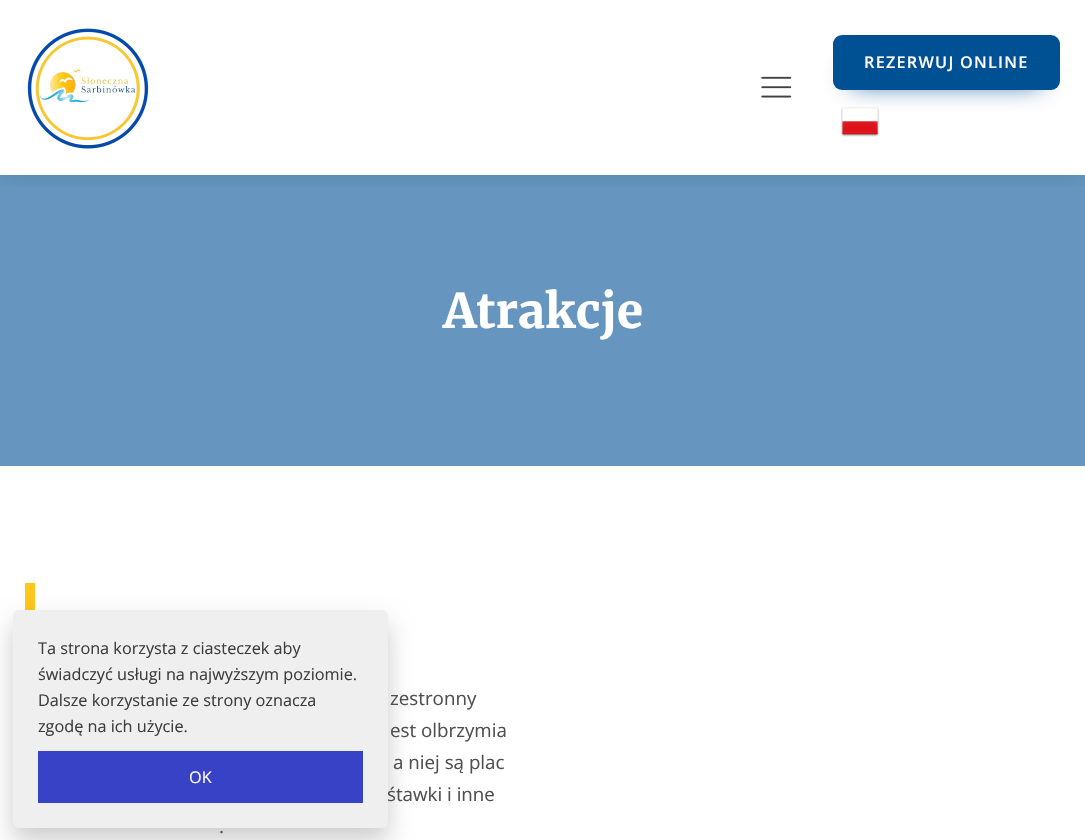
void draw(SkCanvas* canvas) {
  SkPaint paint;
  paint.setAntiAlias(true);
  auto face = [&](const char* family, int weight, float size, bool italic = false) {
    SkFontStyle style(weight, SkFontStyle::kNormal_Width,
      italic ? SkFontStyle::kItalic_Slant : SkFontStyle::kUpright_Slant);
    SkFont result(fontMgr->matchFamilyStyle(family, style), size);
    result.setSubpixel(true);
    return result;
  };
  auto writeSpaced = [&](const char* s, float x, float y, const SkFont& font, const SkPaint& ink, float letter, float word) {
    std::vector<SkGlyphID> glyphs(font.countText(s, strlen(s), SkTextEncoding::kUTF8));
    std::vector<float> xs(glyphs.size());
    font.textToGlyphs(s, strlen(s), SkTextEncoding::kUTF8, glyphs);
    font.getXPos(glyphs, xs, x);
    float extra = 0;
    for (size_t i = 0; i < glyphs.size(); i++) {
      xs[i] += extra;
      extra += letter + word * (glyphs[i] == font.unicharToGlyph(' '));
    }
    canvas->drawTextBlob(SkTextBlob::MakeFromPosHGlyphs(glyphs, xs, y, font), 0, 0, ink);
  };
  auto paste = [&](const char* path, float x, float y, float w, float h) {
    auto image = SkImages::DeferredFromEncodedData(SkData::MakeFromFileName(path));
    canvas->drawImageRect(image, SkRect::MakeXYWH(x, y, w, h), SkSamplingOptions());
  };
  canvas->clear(0xffffffff);
  paint.setColor(0xff6696bf);
  canvas->drawRect(SkRect::MakeXYWH(0, 175, 1085, 291), paint);
  canvas->save();
  canvas->clipRect(SkRect::MakeXYWH(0, 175, 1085, 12));
  paint.setColor(0x14000000);
  paint.setMaskFilter(SkMaskFilter::MakeBlur(kNormal_SkBlurStyle, 9.5f));
  canvas->drawRect(SkRect::MakeXYWH(0, 6, 1085, 175), paint);
  paint.setMaskFilter(nullptr);
  canvas->restore();
  paste("img/1.png", 27, 28, 122, 121);
  paint.setColor(0xff005094);
  paint.setMaskFilter(SkMaskFilter::MakeBlur(kNormal_SkBlurStyle, 12.5f));
  canvas->drawRect(SkRect::MakeXYWH(851, 66, 190, 18), paint);
  paint.setMaskFilter(nullptr);
  canvas->drawRoundRect(SkRect::MakeXYWH(833, 35, 227, 55), 9, 9, paint);
  paste("img/2.png", 841, 107, 38, 30);
  paste("img/3.png", 761, 76, 31, 22);
  paint.setColor(0xffffc61c);
  canvas->drawRect(SkRect::MakeXYWH(25, 583, 10, 27), paint);
  paint.setColor(0x33000000);
  paint.setMaskFilter(SkMaskFilter::MakeBlur(kNormal_SkBlurStyle, 12.5f));
  canvas->drawRoundRect(SkRect::MakeXYWH(13, 623, 375, 217), 6, 6, paint);
  paint.setMaskFilter(nullptr);
  auto f0 = face("Open Sans", 600, 16.25f);
  paint.setColor(0xffffffff);
  writeSpaced("REZERWUJ ONLINE", 864, 68, f0, paint, 1.25f, 0);
  auto f1 = face("Merriweather", 800, 47.5f);
  canvas->drawString("Atrakcje", 443, 328, f1, paint);
  auto f2 = face("Open Sans", 400, 18.75f);
  paint.setColor(0xff4f4f4f);
  {
    const struct { const char* s; float x, y; } items[] = {
      {"zestronny", 390, 705},
      {"est olbrzymia", 390, 737},
      {"a niej są plac", 393, 769},
      {"śtawki i inne", 387, 801},
    };
    for (auto [s, x, y] : items) {
      canvas->drawString(s, x, y, f2, paint);
    }
  }
  paint.setColor(0xffefefef);
  canvas->drawRoundRect(SkRect::MakeXYWH(13, 610, 375, 218), 6, 6, paint);
  paint.setColor(0xff3842c7);
  canvas->drawRect(SkRect::MakeXYWH(38, 751, 325, 52), paint);
  auto f3 = face("Open Sans", 400, 16.25f);
  paint.setColor(0xffffffff);
  canvas->drawString("OK", 189, 783, f3, paint);
  paint.setColor(0xff3d3d3d);
  {
    const struct { const char* s; float x, y; } items[] = {
      {"zgodę na ich użycie.", 38, 732},
      {"Dalsze korzystanie ze strony oznacza", 38, 706},
      {"świadczyć usługi na najwyższym poziomie.", 38, 680},
      {"Ta strona korzysta z ciasteczek aby", 38, 654},
    };
    for (auto [s, x, y] : items) {
      canvas->drawString(s, x, y, f3, paint);
    }
  }
  paint.setColor(0xff4f4f4f);
  canvas->drawString(".", 219, 833, f2, paint);
}
